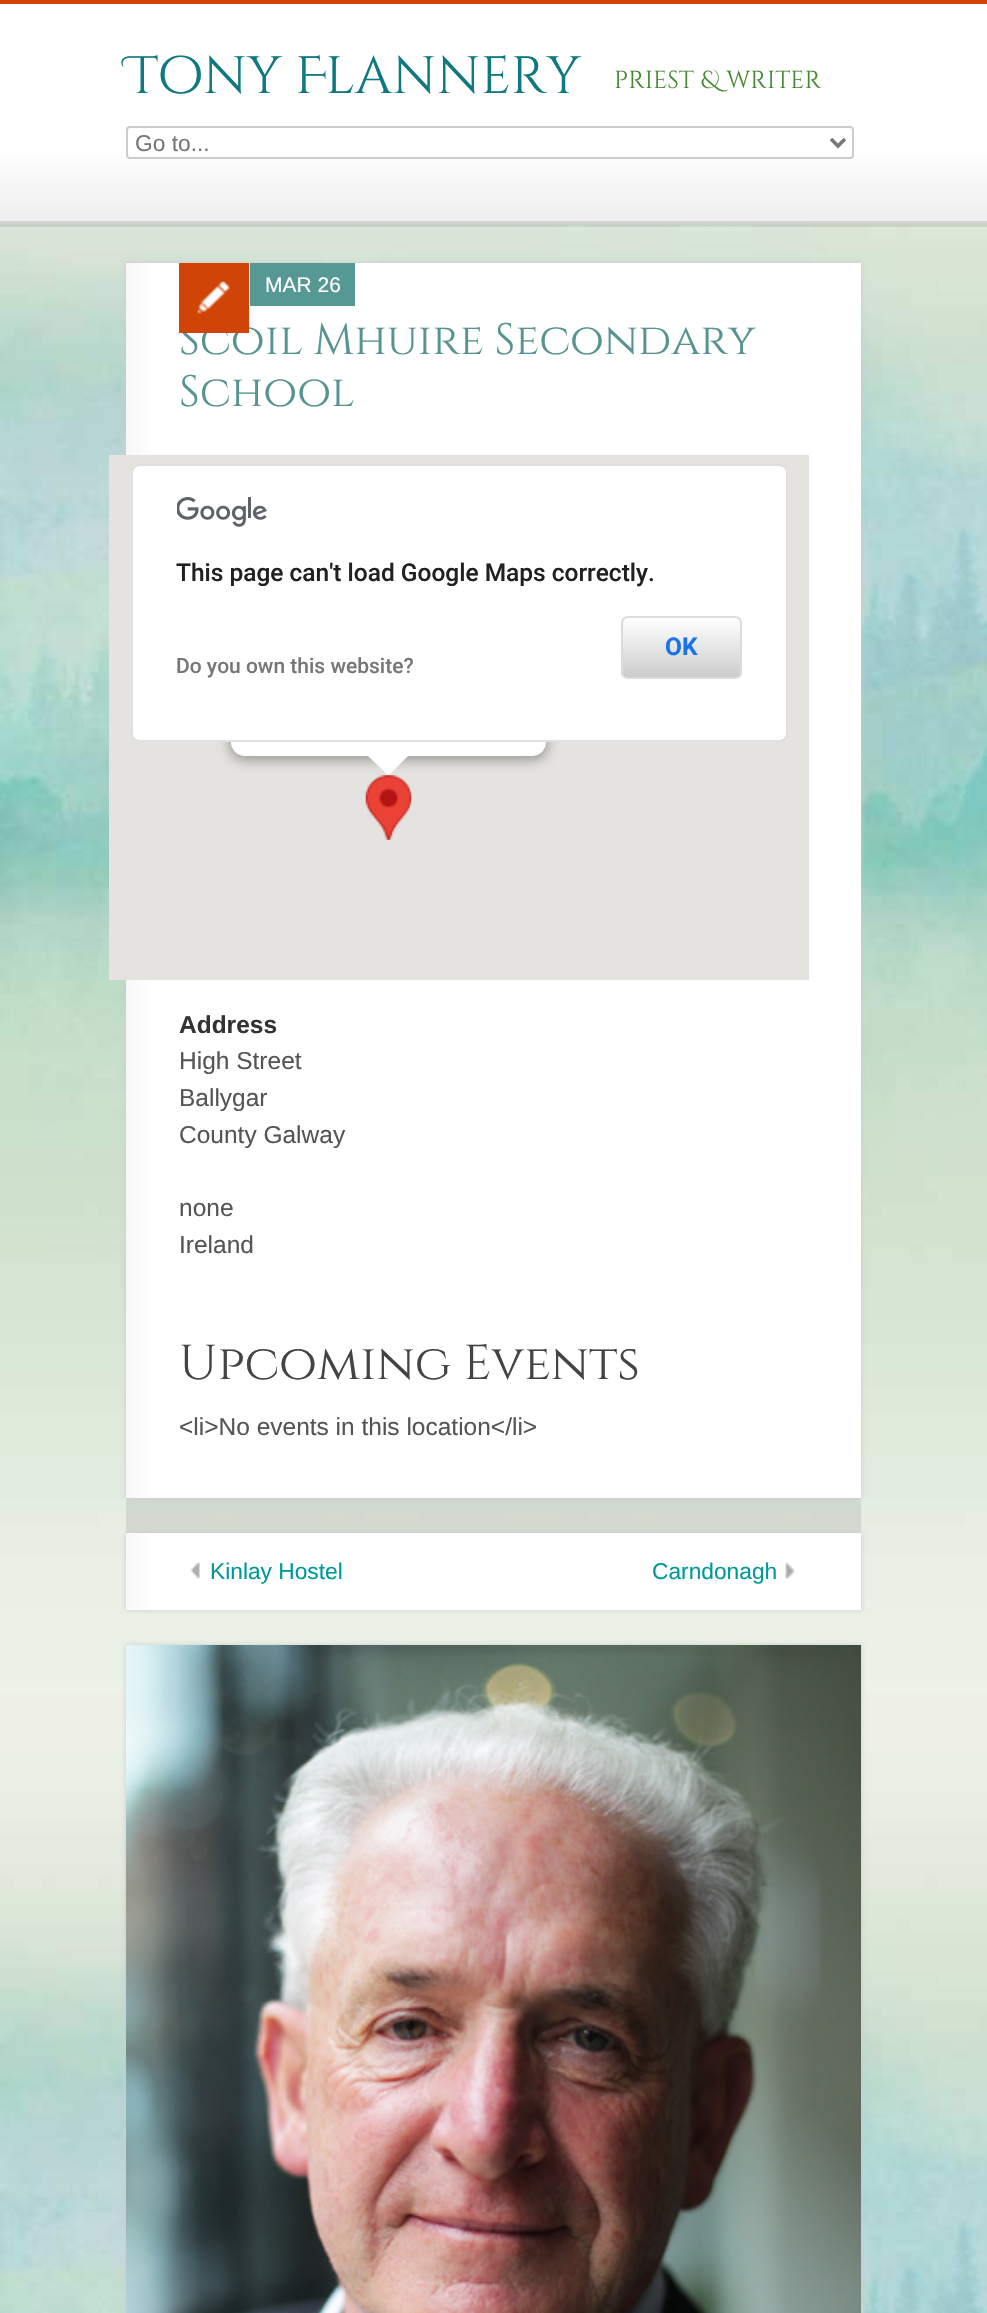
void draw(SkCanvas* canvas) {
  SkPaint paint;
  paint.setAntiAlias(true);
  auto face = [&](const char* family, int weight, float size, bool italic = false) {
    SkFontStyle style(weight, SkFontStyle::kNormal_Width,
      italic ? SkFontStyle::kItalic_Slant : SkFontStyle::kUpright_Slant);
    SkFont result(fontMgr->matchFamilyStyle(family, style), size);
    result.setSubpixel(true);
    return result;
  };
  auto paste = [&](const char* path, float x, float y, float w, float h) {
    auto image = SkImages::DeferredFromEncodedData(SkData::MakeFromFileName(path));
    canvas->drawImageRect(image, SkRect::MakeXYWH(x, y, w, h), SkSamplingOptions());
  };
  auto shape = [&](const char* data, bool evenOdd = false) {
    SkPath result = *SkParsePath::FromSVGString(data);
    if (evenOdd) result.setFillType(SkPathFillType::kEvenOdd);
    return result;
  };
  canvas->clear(0xffffffff);
  paste("img/1.png", 0, 223, 987, 2090);
  paint.setColor(0x1a282828);
  canvas->drawRect(SkRect::MakeXYWH(0, 223, 987, 4), paint);
  {
    const SkColor colors[] = {0xffffffff, 0xffffffff, 0xffeeeeee};
    const float stops[] = {0, 0.65f, 1};
    const SkPoint ends[] = {{494, 3.5f}, {494, 221}};
    paint.setShader(SkGradientShader::MakeLinear(ends, colors, stops, 3, SkTileMode::kClamp));
    paint.setAlpha(255);
  }
  canvas->drawRect(SkRect::MakeXYWH(0, 156, 987, 65), paint);
  paint.setShader(nullptr);
  paint.setColor(0xffd04407);
  canvas->drawRect(SkRect::MakeXYWH(0, 0, 987, 4), paint);
  paint.setColor(0xffd4d4d4);
  canvas->drawRect(SkRect::MakeXYWH(0, 221, 987, 2), paint);
  paint.setColor(0xffffffff);
  canvas->drawRoundRect(SkRect::MakeXYWH(127, 127, 726, 31), 3, 3, paint);
  paint.setStroke(true);
  paint.setStrokeWidth(2);
  paint.setColor(0xffcccccc);
  canvas->drawRoundRect(SkRect::MakeXYWH(127, 127, 726, 31), 3, 3, paint);
  paint.setStrokeWidth(3.5f);
  paint.setColor(0xff777777);
  canvas->drawPath(shape("M831 139L838 146L845 139"), paint);
  paint.setStroke(false);
  paint.setColor(0x1a282828);
  canvas->drawRect(SkRect::MakeXYWH(126, 1498, 735, 35), paint);
  paint.setColor(0xffcccccc);
  paint.setMaskFilter(SkMaskFilter::MakeBlur(kNormal_SkBlurStyle, 2.5f));
  canvas->drawRect(SkRect::MakeXYWH(126, 263, 735, 1235), paint);
  paint.setMaskFilter(nullptr);
  {
    const SkColor colors[] = {0xfff7f7f7, 0xffffffff, 0xffffffff};
    const float stops[] = {0, 0.04f, 1};
    const SkPoint ends[] = {{126, 880}, {861, 880}};
    paint.setShader(SkGradientShader::MakeLinear(ends, colors, stops, 3, SkTileMode::kClamp));
    paint.setAlpha(255);
  }
  canvas->drawRect(SkRect::MakeXYWH(126, 263, 735, 1235), paint);
  paint.setShader(nullptr);
  paint.setColor(0xff569894);
  canvas->drawRect(SkRect::MakeXYWH(250, 263, 105, 43), paint);
  paint.setColor(0xffe5e3df);
  canvas->drawRect(SkRect::MakeXYWH(109, 455, 700, 525), paint);
  paste("img/3.png", 365, 775, 47, 65);
  paint.setColor(0x4d000000);
  paint.setMaskFilter(SkMaskFilter::MakeBlur(kNormal_SkBlurStyle, 6));
  canvas->drawRoundRect(SkRect::MakeXYWH(229, 565, 319, 196), 16, 16, paint);
  paint.setMaskFilter(nullptr);
  paint.setColor(0xffffffff);
  canvas->drawRoundRect(SkRect::MakeXYWH(231, 564, 315, 192), 14, 14, paint);
  canvas->drawPath(shape("M368 756V754H410L389 775H388Z"), paint);
  canvas->drawRoundRect(SkRect::MakeXYWH(131, 464, 657, 278), 9, 9, paint);
  paint.setStroke(true);
  paint.setStrokeWidth(2);
  paint.setColor(0x1f000000);
  canvas->drawRoundRect(SkRect::MakeXYWH(132, 465, 655, 276), 8, 8, paint);
  paste("img/4.png", 177, 497, 90, 30);
  canvas->save();
  canvas->clipPath(shape("M628 616H735C739 616 742 619 742 623V672C742 676 739 679 735 679H628C624 679 621 676 621 672V623C621 619 624 616 628 616Z"), true);
  paint.setStroke(false);
  {
    const SkColor colors[] = {0xffffffff, 0xffcccccc};
    const float stops[] = {0, 1};
    const SkPoint ends[] = {{681, 618}, {681, 677}};
    paint.setShader(SkGradientShader::MakeLinear(ends, colors, stops, 2, SkTileMode::kClamp));
    paint.setAlpha(255);
  }
  canvas->drawRect(SkRect::MakeXYWH(621, 618, 121, 59), paint);
  canvas->restore();
  paint.setStroke(true);
  paint.setShader(nullptr);
  paint.setColor(0xffdadce0);
  canvas->drawRoundRect(SkRect::MakeXYWH(622, 617, 119, 61), 6, 6, paint);
  paint.setStroke(false);
  paint.setColor(0xffcccccc);
  paint.setMaskFilter(SkMaskFilter::MakeBlur(kNormal_SkBlurStyle, 2.5f));
  canvas->drawRect(SkRect::MakeXYWH(126, 1533, 735, 77), paint);
  paint.setMaskFilter(nullptr);
  {
    const SkColor colors[] = {0xfff7f7f7, 0xffffffff, 0xffffffff};
    const float stops[] = {0, 0.04f, 1};
    const SkPoint ends[] = {{126, 1572}, {861, 1572}};
    paint.setShader(SkGradientShader::MakeLinear(ends, colors, stops, 3, SkTileMode::kClamp));
    paint.setAlpha(255);
  }
  canvas->drawRect(SkRect::MakeXYWH(126, 1533, 735, 77), paint);
  paste("img/5.png", 190, 1562, 10, 17);
  paste("img/6.png", 785, 1562, 10, 17);
  paint.setShader(nullptr);
  paint.setColor(0xffcccccc);
  paint.setMaskFilter(SkMaskFilter::MakeBlur(kNormal_SkBlurStyle, 2.5f));
  canvas->drawRect(SkRect::MakeXYWH(126, 1645, 735, 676), paint);
  paint.setMaskFilter(nullptr);
  paste("img/7.png", 126, 1645, 735, 668);
  auto f0 = face("Cinzel Decorative", 400, 52.5f);
  paint.setColor(0xff0e7980);
  canvas->drawString("Tony Flannery", 126, 93, f0, paint);
  auto f1 = face("Cinzel Decorative", 400, 24.5f);
  paint.setColor(0xff468834);
  canvas->drawString("priest & writer", 614, 88, f1, paint);
  auto f2 = face("Liberation Sans", 400, 22.75f);
  paint.setColor(0xff777777);
  canvas->drawString("Go to...", 135, 151, f2, paint);
  auto f3 = face("Liberation Sans", 400, 21);
  paint.setColor(0xffffffff);
  canvas->drawString("MAR 26", 265, 292, f3, paint);
  auto f4 = face("Cinzel", 400, 43.75f);
  paint.setColor(0xff579491);
  canvas->drawString("Scoil Mhuire Secondary", 179, 354, f4, paint);
  paint.setColor(0xffd04407);
  canvas->drawRect(SkRect::MakeXYWH(179, 263, 70, 70), paint);
  paste("img/2.png", 197, 281, 33, 33);
  paint.setColor(0xff579491);
  canvas->drawString("School", 179, 406, f4, paint);
  auto f5 = face("Roboto", 500, 24.5f);
  paint.setColor(0xff212121);
  canvas->drawString("This page can't load Google Maps correctly.", 176, 581, f5, paint);
  auto f6 = face("Roboto", 700, 24.5f);
  paint.setColor(0xff1a73e8);
  canvas->drawString("OK", 665, 655, f6, paint);
  auto f7 = face("Roboto", 500, 21);
  paint.setColor(0xff777777);
  canvas->drawString("Do you own this website?", 176, 673, f7, paint);
  auto f8 = face("Liberation Sans", 700, 24.5f);
  paint.setColor(0xff333333);
  canvas->drawString("Address", 179, 1033, f8, paint);
  auto f9 = face("Liberation Sans", 400, 24.5f);
  paint.setColor(0xff555555);
  {
    const struct { const char* s; float x, y; } items[] = {
      {"High Street", 179, 1069},
      {"Ballygar", 179, 1106},
      {"County Galway", 179, 1143},
      {"none", 179, 1216},
      {"Ireland", 179, 1253},
    };
    for (auto [s, x, y] : items) {
      canvas->drawString(s, x, y, f9, paint);
    }
  }
  auto f10 = face("Cinzel", 400, 49);
  paint.setColor(0xff444444);
  canvas->drawString("Upcoming Events", 179, 1379, f10, paint);
  paint.setColor(0xff555555);
  canvas->drawString("<li>No events in this location</li>", 179, 1435, f9, paint);
  paint.setColor(0xff009999);
  canvas->drawString("Kinlay Hostel", 210, 1579, f2, paint);
  canvas->drawString("Carndonagh", 652, 1579, f2, paint);
}
